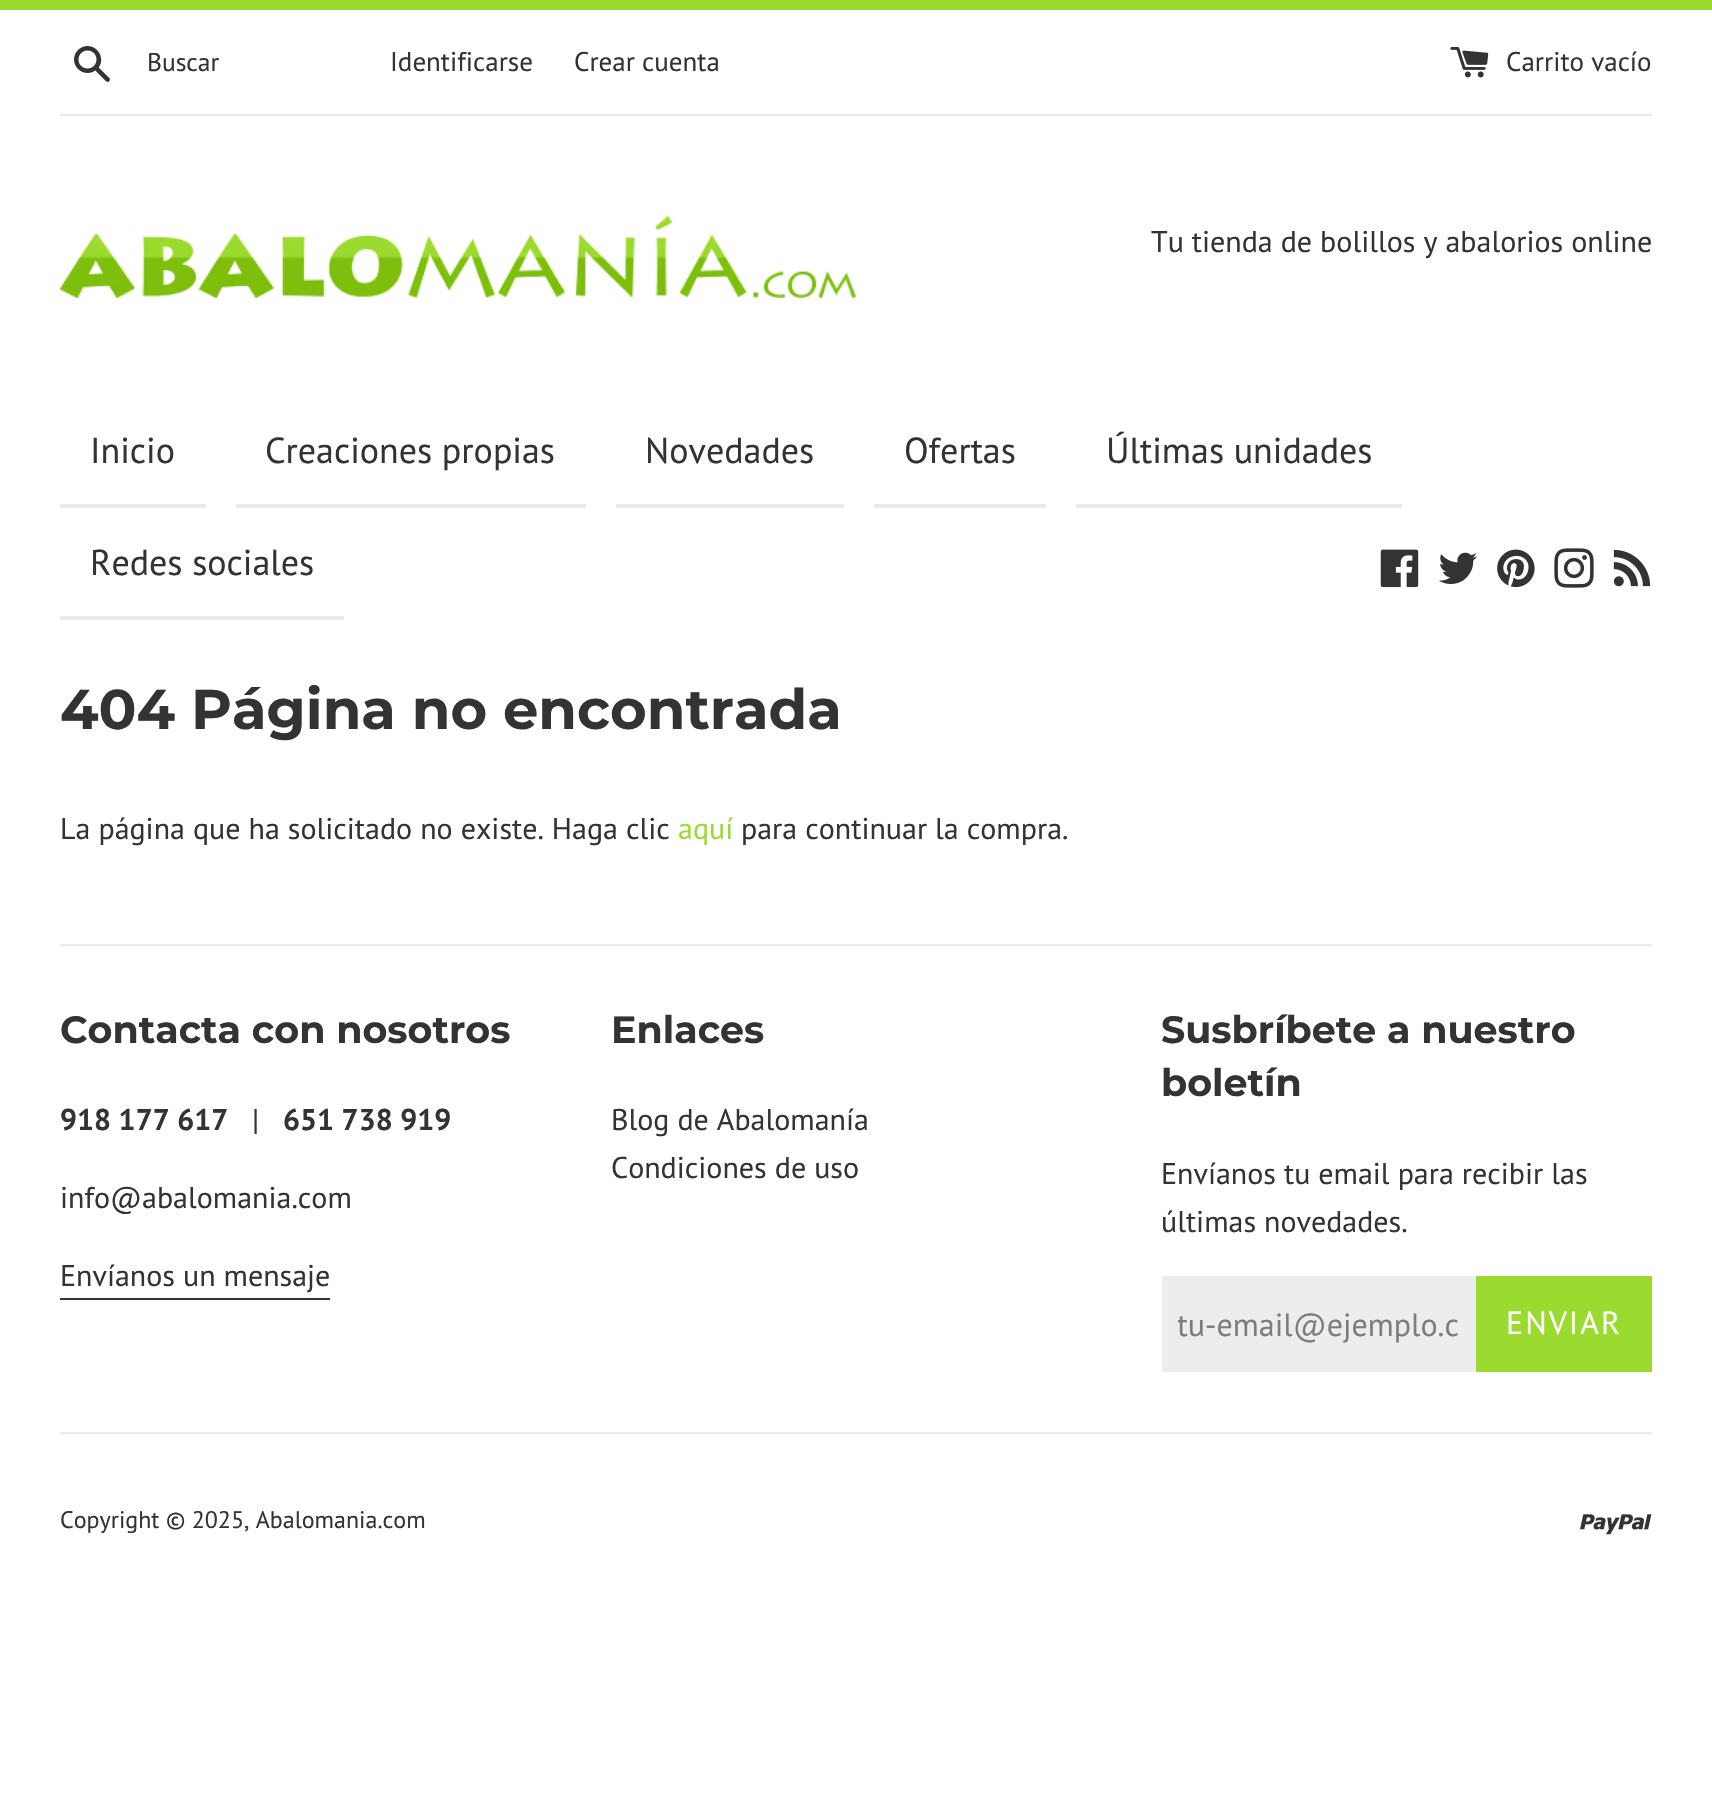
void draw(SkCanvas* canvas) {
  SkPaint paint;
  paint.setAntiAlias(true);
  auto face = [&](const char* family, int weight, float size, bool italic = false) {
    SkFontStyle style(weight, SkFontStyle::kNormal_Width,
      italic ? SkFontStyle::kItalic_Slant : SkFontStyle::kUpright_Slant);
    SkFont result(fontMgr->matchFamilyStyle(family, style), size);
    result.setSubpixel(true);
    return result;
  };
  auto writeSpaced = [&](const char* s, float x, float y, const SkFont& font, const SkPaint& ink, float letter, float word) {
    std::vector<SkGlyphID> glyphs(font.countText(s, strlen(s), SkTextEncoding::kUTF8));
    std::vector<float> xs(glyphs.size());
    font.textToGlyphs(s, strlen(s), SkTextEncoding::kUTF8, glyphs);
    font.getXPos(glyphs, xs, x);
    float extra = 0;
    for (size_t i = 0; i < glyphs.size(); i++) {
      xs[i] += extra;
      extra += letter + word * (glyphs[i] == font.unicharToGlyph(' '));
    }
    canvas->drawTextBlob(SkTextBlob::MakeFromPosHGlyphs(glyphs, xs, y, font), 0, 0, ink);
  };
  auto paste = [&](const char* path, float x, float y, float w, float h) {
    auto image = SkImages::DeferredFromEncodedData(SkData::MakeFromFileName(path));
    canvas->drawImageRect(image, SkRect::MakeXYWH(x, y, w, h), SkSamplingOptions());
  };
  canvas->clear(0xffffffff);
  paint.setColor(0xff9bdb2f);
  canvas->drawRect(SkRect::MakeXYWH(0, 0, 1712, 10), paint);
  paste("img/1.png", 74, 46, 36, 36);
  paste("img/2.png", 1450, 47, 39, 31);
  paint.setColor(0xffeaeaea);
  canvas->drawRect(SkRect::MakeXYWH(60, 114, 1592, 2), paint);
  paste("img/3.png", 60, 216, 796, 82);
  {
    const struct { float x, y, w, h; SkColor color; } items[] = {
      {60, 504, 146, 4, 0xffeaeaea},
      {236, 504, 350, 4, 0xffeaeaea},
      {616, 504, 228, 4, 0xffeaeaea},
      {874, 504, 172, 4, 0xffeaeaea},
      {1076, 504, 326, 4, 0xffeaeaea},
      {60, 616, 284, 4, 0xffeaeaea},
    };
    for (auto [x, y, w, h, color] : items) {
      paint.setColor(color);
      canvas->drawRect(SkRect::MakeXYWH(x, y, w, h), paint);
    }
  }
  paste("img/4.png", 1380, 549, 39, 39);
  paste("img/5.png", 1438, 552, 39, 32);
  paste("img/6.png", 1497, 549, 38, 39);
  paste("img/7.png", 1554, 548, 40, 40);
  paste("img/8.png", 1613, 549, 38, 38);
  {
    const struct { float x, y, w, h; SkColor color; } items[] = {
      {60, 944, 1592, 2, 0xffeaeaea},
      {60, 1298, 270, 2, 0xff333333},
      {1162, 1276, 314, 96, 0xffededed},
      {1476, 1276, 176, 96, 0xff9bdb2f},
      {60, 1432, 1592, 2, 0xffeaeaea},
    };
    for (auto [x, y, w, h, color] : items) {
      paint.setColor(color);
      canvas->drawRect(SkRect::MakeXYWH(x, y, w, h), paint);
    }
  }
  paste("img/9.png", 1580, 1514, 72, 21);
  auto f0 = face("PT Sans", 400, 25.5f);
  paint.setColor(0xff333333);
  canvas->drawString("Buscar", 147, 71, f0, paint);
  auto f1 = face("PT Sans", 400, 27);
  {
    const struct { const char* s; float x, y; } items[] = {
      {"Identificarse", 390, 71},
      {"Crear cuenta", 574, 71},
      {"Carrito vacío", 1506, 71},
    };
    for (auto [s, x, y] : items) {
      canvas->drawString(s, x, y, f1, paint);
    }
  }
  auto f2 = face("PT Sans", 400, 30);
  canvas->drawString("Tu tienda de bolillos y abalorios online", 1151, 252, f2, paint);
  auto f3 = face("PT Sans", 400, 36);
  {
    const struct { const char* s; float x, y; } items[] = {
      {"Inicio", 90, 463},
      {"Creaciones propias", 265, 463},
      {"Novedades", 645, 463},
      {"Ofertas", 904, 463},
      {"Últimas unidades", 1106, 463},
      {"Redes sociales", 90, 575},
    };
    for (auto [s, x, y] : items) {
      canvas->drawString(s, x, y, f3, paint);
    }
  }
  auto f4 = face("Montserrat", 700, 56);
  canvas->drawString("404 Página no encontrada", 60, 729, f4, paint);
  canvas->drawString("La página que ha solicitado no existe. Haga clic", 60, 839, f2, paint);
  paint.setColor(0xff9bdb2f);
  canvas->drawString("aquí", 678, 839, f2, paint);
  paint.setColor(0xff333333);
  canvas->drawString("para continuar la compra.", 741, 839, f2, paint);
  auto f5 = face("Montserrat", 700, 38);
  canvas->drawString("Contacta con nosotros", 60, 1043, f5, paint);
  auto f6 = face("PT Sans", 700, 30);
  canvas->drawString("918 177 617", 60, 1130, f6, paint);
  canvas->drawString("|", 252, 1130, f2, paint);
  canvas->drawString("651 738 919", 283, 1130, f6, paint);
  canvas->drawString("info@abalomania.com", 60, 1208, f2, paint);
  canvas->drawString("Envíanos un mensaje", 60, 1286, f2, paint);
  canvas->drawString("Enlaces", 611, 1043, f5, paint);
  canvas->drawString("Blog de Abalomanía", 611, 1130, f2, paint);
  canvas->drawString("Condiciones de uso", 611, 1178, f2, paint);
  canvas->drawString("Susbríbete a nuestro", 1161, 1043, f5, paint);
  canvas->drawString("boletín", 1161, 1096, f5, paint);
  canvas->drawString("Envíanos tu email para recibir las", 1161, 1184, f2, paint);
  canvas->drawString("últimas novedades.", 1161, 1232, f2, paint);
  canvas->save();
  canvas->clipRect(SkRect::MakeXYWH(1178, 1304, 282, 40));
  auto f7 = face("PT Sans", 400, 32);
  paint.setColor(0xff7d7d7d);
  canvas->drawString("tu-email@ejemplo.c", 1177, 1336, f7, paint);
  canvas->restore();
  paint.setColor(0xffffffff);
  writeSpaced("ENVIAR", 1506, 1334, f7, paint, 2, 0);
  auto f8 = face("PT Sans", 400, 24);
  paint.setColor(0xff333333);
  canvas->drawString("Copyright © 2025, Abalomania.com", 60, 1528, f8, paint);
}
